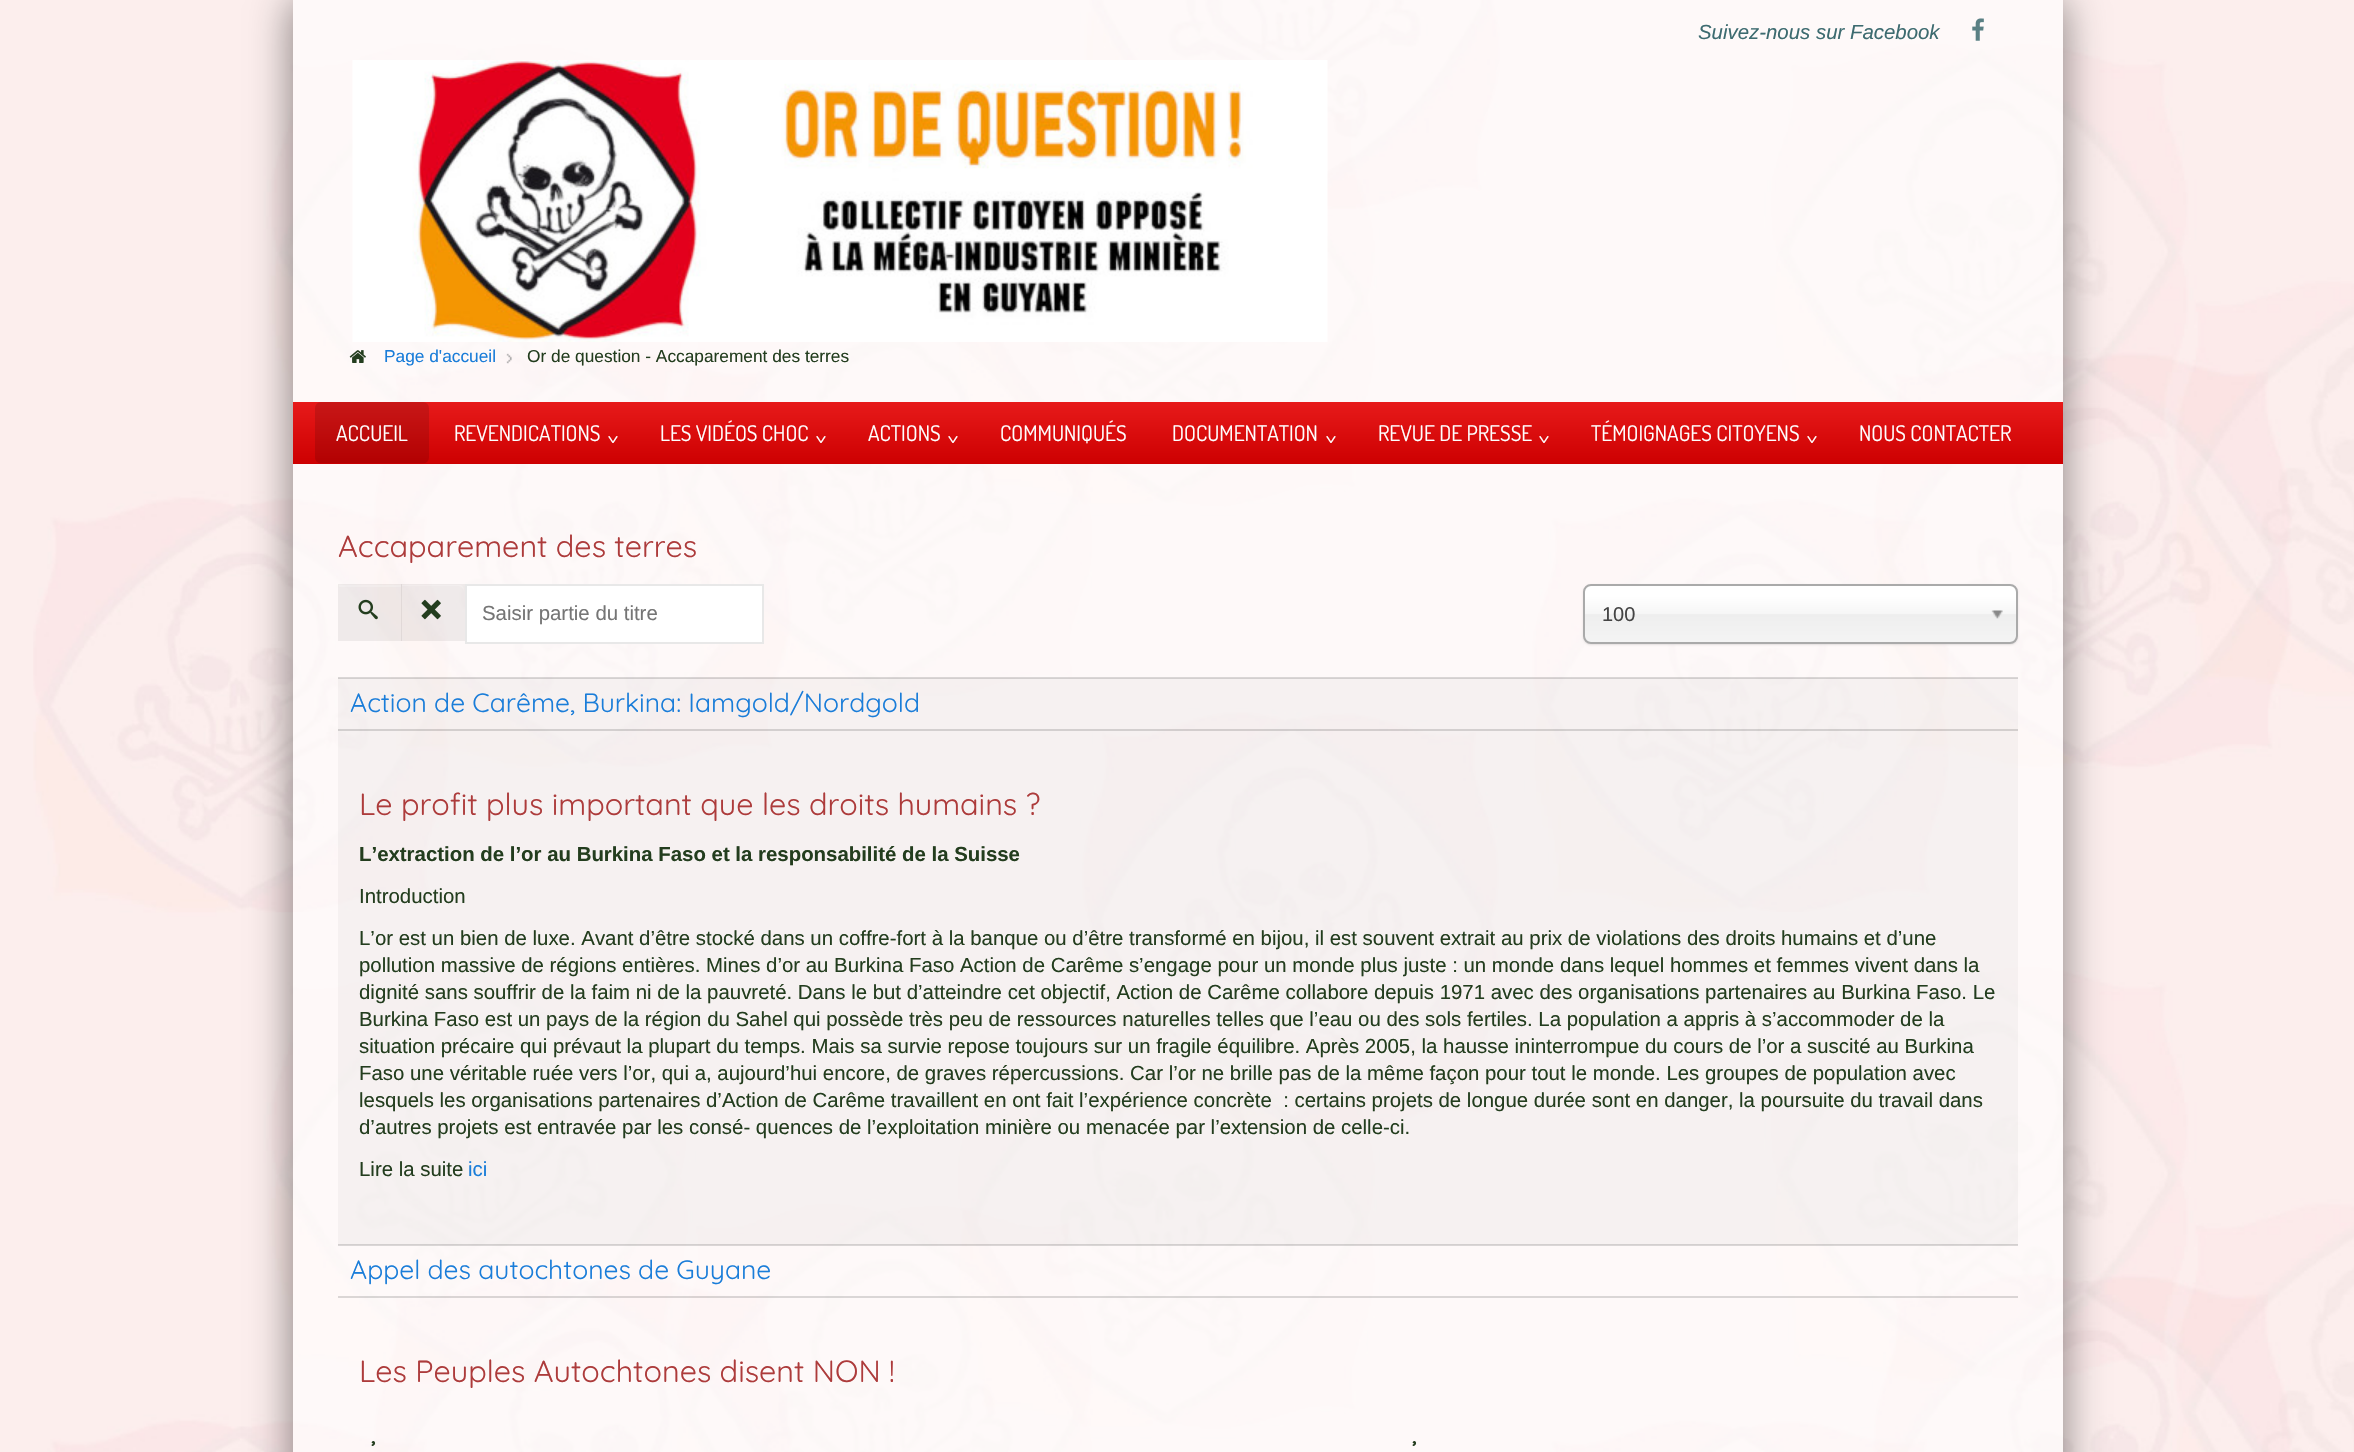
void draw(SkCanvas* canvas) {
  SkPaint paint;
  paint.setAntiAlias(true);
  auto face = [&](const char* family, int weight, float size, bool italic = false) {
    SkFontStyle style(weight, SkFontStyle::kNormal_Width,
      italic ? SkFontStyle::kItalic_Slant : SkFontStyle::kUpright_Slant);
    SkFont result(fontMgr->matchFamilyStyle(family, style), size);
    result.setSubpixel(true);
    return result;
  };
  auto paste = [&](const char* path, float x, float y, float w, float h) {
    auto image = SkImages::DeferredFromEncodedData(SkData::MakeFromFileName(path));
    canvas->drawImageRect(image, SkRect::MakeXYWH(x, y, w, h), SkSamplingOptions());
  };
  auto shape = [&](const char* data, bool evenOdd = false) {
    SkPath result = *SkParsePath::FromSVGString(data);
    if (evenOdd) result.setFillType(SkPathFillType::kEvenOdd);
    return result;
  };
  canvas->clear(0xfffceeed);
  paste("img/1.png", 33, 0, 2321, 1452);
  canvas->save();
  canvas->clipPath(shape("M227 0H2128V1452H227ZM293 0H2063V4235C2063 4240 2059 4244 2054 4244H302C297 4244 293 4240 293 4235Z", true), true);
  paint.setColor(0x75000000);
  paint.setMaskFilter(SkMaskFilter::MakeBlur(kNormal_SkBlurStyle, 21));
  canvas->drawRoundRect(SkRect::MakeXYWH(291, -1, 1773, 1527), 11, 11, paint);
  paint.setMaskFilter(nullptr);
  canvas->restore();
  paint.setColor(0xa6ffffff);
  canvas->drawRect(SkRect::MakeXYWH(293, 0, 1770, 1452), paint);
  paste("img/2.png", 1972, 18, 12, 23);
  paste("img/3.png", 352, 60, 976, 282);
  paste("img/4.png", 349, 350, 17, 13);
  paste("img/5.png", 506, 353, 6, 11);
  {
    const SkColor colors[] = {0xffe71a1a, 0xffcd0001};
    const float stops[] = {0, 1};
    const SkPoint ends[] = {{1178, 402}, {1178, 464}};
    paint.setShader(SkGradientShader::MakeLinear(ends, colors, stops, 2, SkTileMode::kClamp));
    paint.setAlpha(255);
  }
  canvas->drawRect(SkRect::MakeXYWH(293, 402, 1770, 62), paint);
  paste("img/6.png", 315, 402, 114, 62);
  paint.setShader(nullptr);
  paint.setColor(0x0f000000);
  canvas->drawRect(SkRect::MakeXYWH(338, 584, 64, 57), paint);
  paint.setColor(0x33ffffff);
  canvas->drawRect(SkRect::MakeXYWH(339, 585, 62, 2), paint);
  paste("img/7.png", 358, 599, 20, 21);
  paint.setColor(0x0f000000);
  canvas->drawRect(SkRect::MakeXYWH(401, 584, 64, 57), paint);
  paint.setColor(0x33ffffff);
  canvas->drawPath(shape("M402 586H459C461 586 464 589 464 591V590C464 587 462 585 459 585H402Z"), paint);
  paste("img/8.png", 421, 599, 20, 21);
  paint.setColor(0xffffffff);
  canvas->drawRect(SkRect::MakeXYWH(466, 585, 297, 58), paint);
  paint.setStroke(true);
  paint.setStrokeWidth(2);
  paint.setColor(0xffe8e8e8);
  canvas->drawRect(SkRect::MakeXYWH(466, 585, 297, 58), paint);
  paint.setStroke(false);
  paint.setColor(0x1a000000);
  paint.setMaskFilter(SkMaskFilter::MakeBlur(kNormal_SkBlurStyle, 1));
  canvas->drawRoundRect(SkRect::MakeXYWH(1583, 585, 435, 60), 8, 8, paint);
  paint.setMaskFilter(nullptr);
  {
    const SkColor colors[] = {0xffffffff, 0xfff6f6f6, 0xffeeeeee, 0xfff4f4f4};
    const float stops[] = {0.2f, 0.5f, 0.52f, 1};
    const SkPoint ends[] = {{1800, 585}, {1800, 642}};
    paint.setShader(SkGradientShader::MakeLinear(ends, colors, stops, 4, SkTileMode::kClamp));
    paint.setAlpha(255);
  }
  canvas->drawRoundRect(SkRect::MakeXYWH(1584, 585, 432, 57), 6, 6, paint);
  paint.setStroke(true);
  paint.setShader(nullptr);
  paint.setColor(0xffaaaaaa);
  canvas->drawRoundRect(SkRect::MakeXYWH(1584, 585, 433, 58), 7, 7, paint);
  paste("img/9.png", 1991, 610, 12, 9);
  paint.setStroke(false);
  {
    const struct { float x, y, w, h; SkColor color; } items[] = {
      {338, 677, 1680, 2, 0x24000000},
      {338, 678, 1680, 567, 0x08000000},
      {338, 1244, 1680, 2, 0x24000000},
      {338, 729, 1680, 2, 0x24000000},
      {338, 1296, 1680, 2, 0x24000000},
    };
    for (auto [x, y, w, h, color] : items) {
      paint.setColor(color);
      canvas->drawRect(SkRect::MakeXYWH(x, y, w, h), paint);
    }
  }
  auto f0 = face("Liberation Sans", 400, 20.4f, true);
  paint.setColor(0xff3d6b70);
  canvas->drawString("Suivez-nous sur Facebook", 1698, 39, f0, paint);
  auto f1 = face("Liberation Sans", 400, 17.3f);
  paint.setColor(0xff1a7dd9);
  canvas->drawString("Page d'accueil", 384, 362, f1, paint);
  paint.setColor(0xff233d1e);
  canvas->drawString("Or de question - Accaparement des terres", 527, 362, f1, paint);
  auto f2 = face("Dosis", 400, 21.5f);
  paint.setColor(0xffffffff);
  canvas->drawString("ACCUEIL", 336, 441, f2, paint);
  canvas->drawString("REVENDICATIONS", 454, 441, f2, paint);
  canvas->save();
  canvas->rotate(90, 607, 435);
  canvas->drawString(">", 607, 435, f2, paint);
  canvas->restore();
  canvas->drawString("LES VIDÉOS CHOC", 660, 441, f2, paint);
  canvas->save();
  canvas->rotate(90, 815, 435);
  canvas->drawString(">", 815, 435, f2, paint);
  canvas->restore();
  canvas->drawString("ACTIONS", 868, 441, f2, paint);
  canvas->save();
  canvas->rotate(90, 947, 435);
  canvas->drawString(">", 947, 435, f2, paint);
  canvas->restore();
  canvas->drawString("COMMUNIQUÉS", 1000, 441, f2, paint);
  canvas->drawString("DOCUMENTATION", 1172, 441, f2, paint);
  canvas->save();
  canvas->rotate(90, 1325, 435);
  canvas->drawString(">", 1325, 435, f2, paint);
  canvas->restore();
  canvas->drawString("REVUE DE PRESSE", 1378, 441, f2, paint);
  canvas->save();
  canvas->rotate(90, 1538, 435);
  canvas->drawString(">", 1538, 435, f2, paint);
  canvas->restore();
  canvas->drawString("TÉMOIGNAGES CITOYENS", 1591, 441, f2, paint);
  canvas->save();
  canvas->rotate(90, 1806, 435);
  canvas->drawString(">", 1806, 435, f2, paint);
  canvas->restore();
  canvas->drawString("NOUS CONTACTER", 1859, 441, f2, paint);
  auto f3 = face("Quicksand", 300, 30.6f);
  paint.setColor(0xffad3b3b);
  canvas->drawString("Accaparement des terres", 338, 557, f3, paint);
  auto f4 = face("Liberation Sans", 400, 20.4f);
  paint.setColor(0xff757575);
  canvas->drawString("Saisir partie du titre", 482, 620, f4, paint);
  auto f5 = face("Liberation Sans", 400, 20);
  paint.setColor(0xff444444);
  canvas->drawString("100", 1602, 621, f5, paint);
  auto f6 = face("Quicksand", 300, 26.5f);
  paint.setColor(0xff1a7dd9);
  canvas->drawString("Action de Carême, Burkina: Iamgold/Nordgold", 350, 712, f6, paint);
  paint.setColor(0xffad3b3b);
  canvas->drawString("Le profit plus important que les droits humains ?", 359, 815, f3, paint);
  auto f7 = face("Liberation Sans", 700, 20.4f);
  paint.setColor(0xff233d1e);
  canvas->drawString("L’extraction de l’or au Burkina Faso et la responsabilité de la Suisse", 359, 861, f7, paint);
  {
    const struct { const char* s; float x, y; } items[] = {
      {"Introduction", 359, 903},
      {"L’or est un bien de luxe. Avant d’être stocké dans un coffre-fort à la banque ou d’être transformé en bijou, il est souvent extrait au prix de violations des droits humains et d’une", 359, 945},
      {"pollution massive de régions entières. Mines d’or au Burkina Faso Action de Carême s’engage pour un monde plus juste : un monde dans lequel hommes et femmes vivent dans la", 359, 972},
      {"dignité sans souffrir de la faim ni de la pauvreté. Dans le but d’atteindre cet objectif, Action de Carême collabore depuis 1971 avec des organisations partenaires au Burkina Faso. Le", 359, 999},
      {"Burkina Faso est un pays de la région du Sahel qui possède très peu de ressources naturelles telles que l’eau ou des sols fertiles. La population a appris à s’accommoder de la", 359, 1026},
      {"situation précaire qui prévaut la plupart du temps. Mais sa survie repose toujours sur un fragile équilibre. Après 2005, la hausse ininterrompue du cours de l’or a suscité au Burkina", 359, 1053},
      {"Faso une véritable ruée vers l’or, qui a, aujourd’hui encore, de graves répercussions. Car l’or ne brille pas de la même façon pour tout le monde. Les groupes de population avec", 359, 1080},
      {"lesquels les organisations partenaires d’Action de Carême travaillent en ont fait l’expérience concrète  : certains projets de longue durée sont en danger, la poursuite du travail dans", 359, 1107},
      {"d’autres projets est entravée par les consé- quences de l’exploitation minière ou menacée par l’extension de celle-ci.", 359, 1134},
      {"Lire la suite", 359, 1176},
    };
    for (auto [s, x, y] : items) {
      canvas->drawString(s, x, y, f4, paint);
    }
  }
  paint.setColor(0xff1a7dd9);
  canvas->drawString("ici", 468, 1176, f4, paint);
  canvas->drawString("Appel des autochtones de Guyane", 350, 1279, f6, paint);
  paint.setColor(0xffad3b3b);
  canvas->drawString("Les Peuples Autochtones disent NON !", 359, 1382, f3, paint);
  auto f8 = face("Quicksand", 700, 23);
  paint.setColor(0xff233d1e);
  canvas->drawString("’", 371, 1458, f8, paint);
  canvas->drawString("’", 1412, 1458, f8, paint);
}
